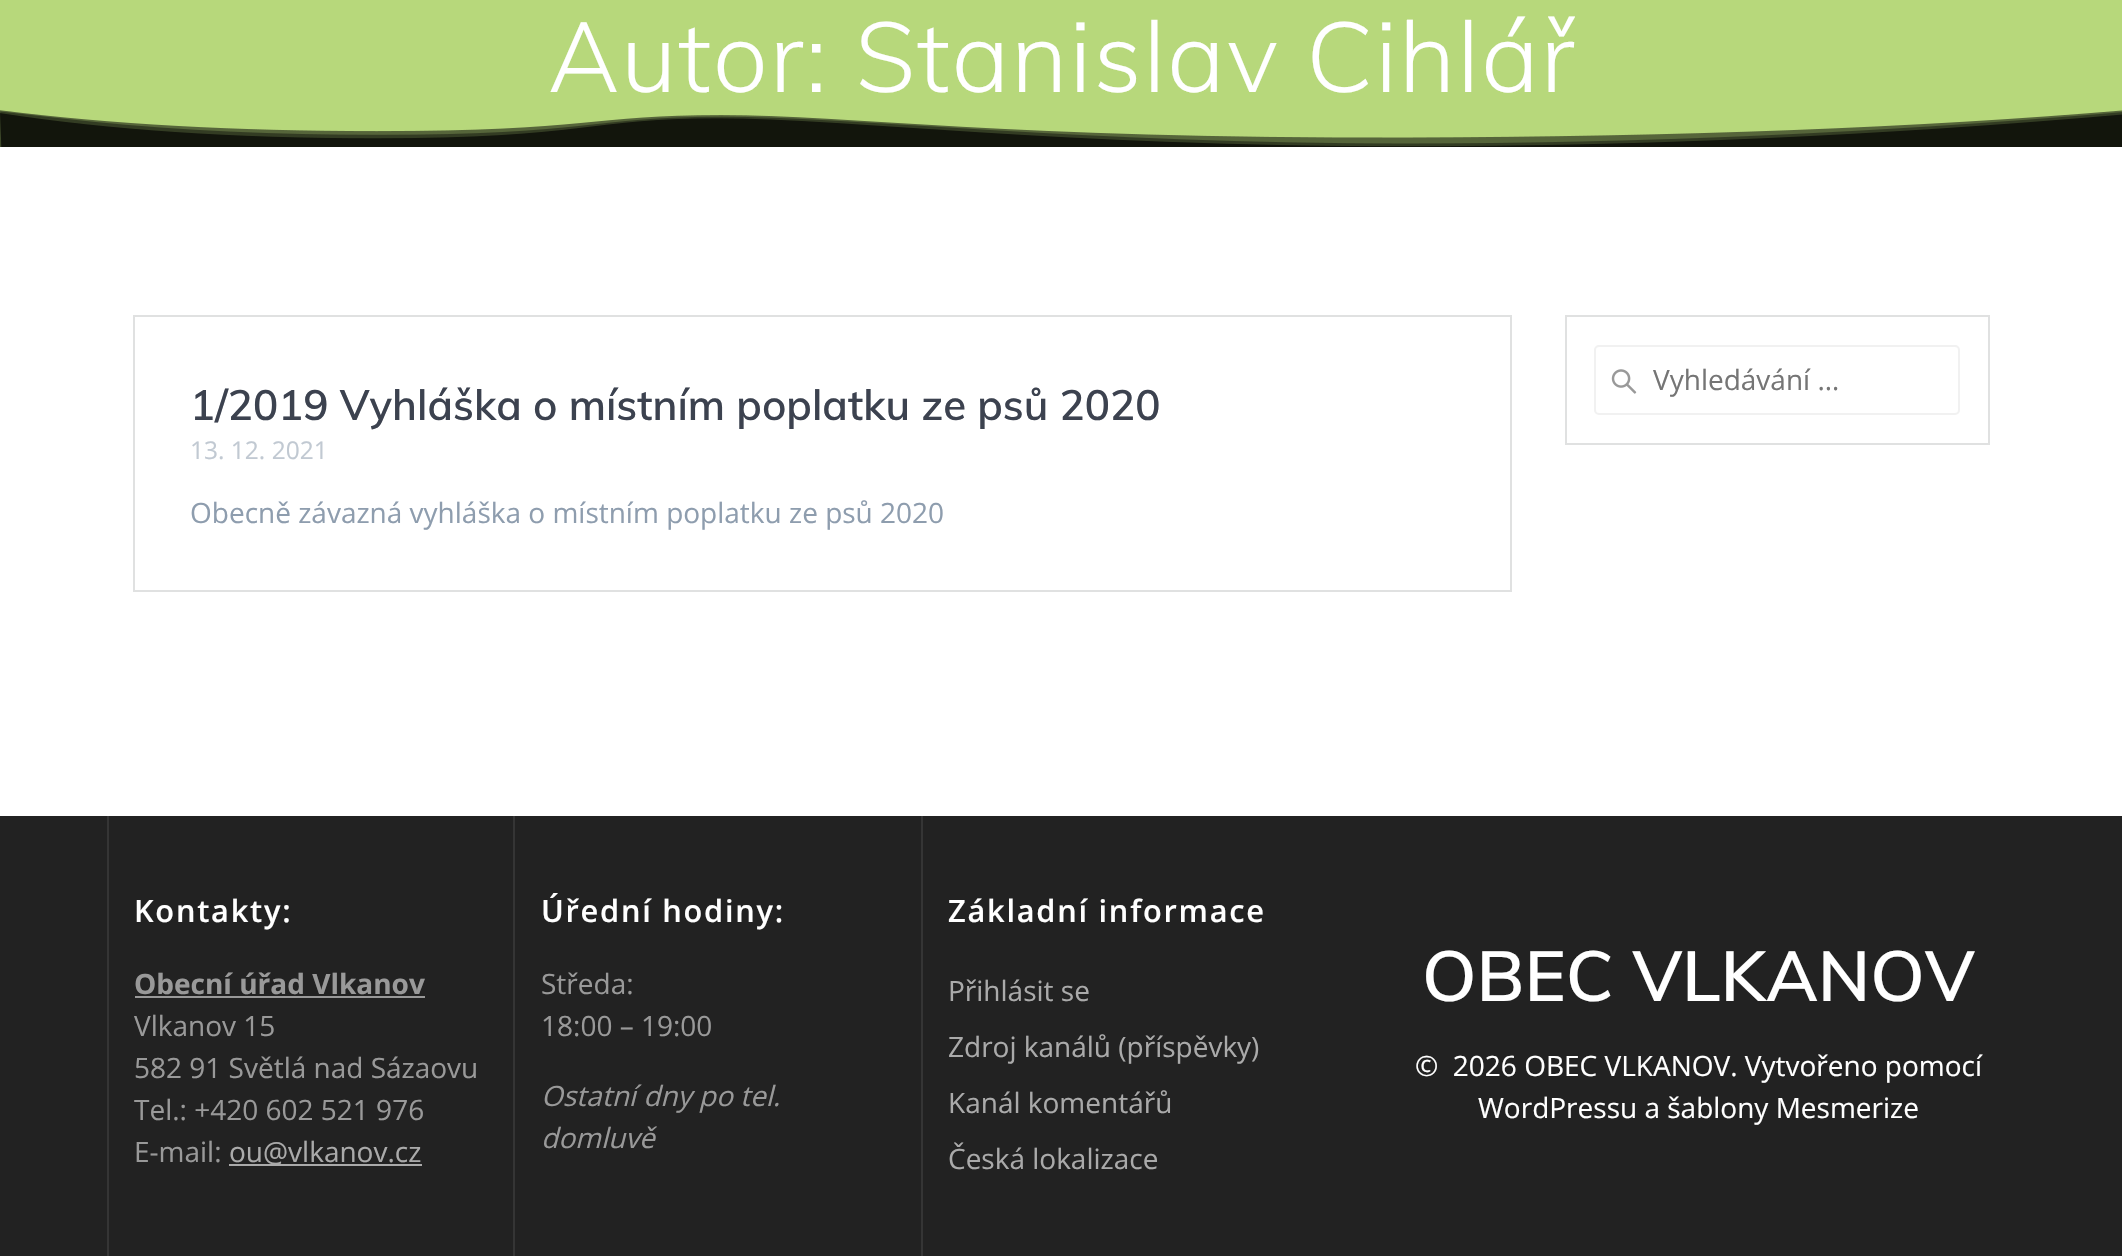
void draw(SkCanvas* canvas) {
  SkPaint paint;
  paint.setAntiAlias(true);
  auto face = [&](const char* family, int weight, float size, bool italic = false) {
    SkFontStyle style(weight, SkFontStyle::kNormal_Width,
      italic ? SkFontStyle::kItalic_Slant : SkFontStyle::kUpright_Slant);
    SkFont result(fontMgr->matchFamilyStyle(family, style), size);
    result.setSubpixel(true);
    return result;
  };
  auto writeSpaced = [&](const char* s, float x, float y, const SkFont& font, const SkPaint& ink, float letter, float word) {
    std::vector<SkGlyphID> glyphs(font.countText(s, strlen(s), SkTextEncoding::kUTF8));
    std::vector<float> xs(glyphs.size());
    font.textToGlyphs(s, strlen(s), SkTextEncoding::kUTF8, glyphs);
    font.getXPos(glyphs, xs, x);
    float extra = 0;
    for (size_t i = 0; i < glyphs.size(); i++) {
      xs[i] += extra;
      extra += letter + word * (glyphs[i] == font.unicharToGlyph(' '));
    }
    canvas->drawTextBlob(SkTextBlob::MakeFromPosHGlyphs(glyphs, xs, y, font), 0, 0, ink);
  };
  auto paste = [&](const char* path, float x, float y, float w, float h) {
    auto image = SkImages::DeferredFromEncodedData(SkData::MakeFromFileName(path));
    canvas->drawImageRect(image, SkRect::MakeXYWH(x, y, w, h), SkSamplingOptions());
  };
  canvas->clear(0xffb7d87b);
  paste("img/1.png", 0, 110, 2122, 37);
  paint.setColor(0xffffffff);
  canvas->drawRect(SkRect::MakeXYWH(0, 147, 2122, 669), paint);
  paint.setStroke(true);
  paint.setStrokeWidth(2);
  paint.setColor(0xffe0e1e1);
  canvas->drawRect(SkRect::MakeXYWH(1566, 316, 423, 128), paint);
  paste("img/2.png", 1611, 369, 26, 25);
  paint.setColor(0xfff1f1f1);
  canvas->drawRoundRect(SkRect::MakeXYWH(1595, 346, 364, 68), 4, 4, paint);
  paint.setColor(0xffe0e1e1);
  canvas->drawRect(SkRect::MakeXYWH(134, 316, 1377, 275), paint);
  paint.setStroke(false);
  {
    const struct { float x, y, w, h; SkColor color; } items[] = {
      {0, 816, 2122, 440, 0xff222222},
      {107, 816, 2, 440, 0xff353535},
      {135, 996, 290, 2, 0xff999999},
      {229, 1164, 193, 2, 0xffaaaaaa},
      {513, 816, 2, 440, 0xff353535},
      {921, 816, 2, 440, 0xff353535},
    };
    for (auto [x, y, w, h, color] : items) {
      paint.setColor(color);
      canvas->drawRect(SkRect::MakeXYWH(x, y, w, h), paint);
    }
  }
  auto f0 = face("Muli", 300, 98);
  paint.setColor(0xffffffff);
  writeSpaced("Autor: Stanislav Cihlář", 548, 92, f0, paint, 1.6f, 0);
  auto f1 = face("Open Sans", 400, 28);
  paint.setColor(0xff757575);
  canvas->drawString("Vyhledávání …", 1653, 390, f1, paint);
  auto f2 = face("Muli", 600, 42);
  paint.setColor(0xff3c424f);
  canvas->drawString("1/2019 Vyhláška o místním poplatku ze psů 2020", 190, 420, f2, paint);
  auto f3 = face("Open Sans", 400, 24.5f);
  paint.setColor(0xffc1c9d2);
  canvas->drawString("13. 12. 2021", 190, 459, f3, paint);
  paint.setColor(0xff8e9dae);
  canvas->drawString("Obecně závazná vyhláška o místním poplatku ze psů 2020", 190, 523, f1, paint);
  auto f4 = face("Open Sans", 600, 30.75f);
  paint.setColor(0xffffffff);
  writeSpaced("Kontakty:", 134, 922, f4, paint, 1.75f, 0);
  auto f5 = face("Open Sans", 700, 28);
  paint.setColor(0xff999999);
  canvas->drawString("Obecní úřad Vlkanov", 134, 994, f5, paint);
  {
    const struct { const char* s; float x, y; } items[] = {
      {"Vlkanov 15", 134, 1036},
      {"582 91 Světlá nad Sázaovu", 134, 1078},
      {"Tel.: +420 602 521 976", 134, 1120},
      {"E-mail:", 134, 1162},
    };
    for (auto [s, x, y] : items) {
      canvas->drawString(s, x, y, f1, paint);
    }
  }
  paint.setColor(0xffaaaaaa);
  canvas->drawString("ou@vlkanov.cz", 229, 1162, f1, paint);
  paint.setColor(0xffffffff);
  writeSpaced("Úřední hodiny:", 541, 922, f4, paint, 1.75f, 0);
  paint.setColor(0xff999999);
  canvas->drawString("Středa:", 541, 994, f1, paint);
  canvas->drawString("18:00 – 19:00", 541, 1036, f1, paint);
  auto f6 = face("Open Sans", 400, 28, true);
  canvas->drawString("Ostatní dny po tel.", 541, 1106, f6, paint);
  canvas->drawString("domluvě", 541, 1148, f6, paint);
  paint.setColor(0xffffffff);
  writeSpaced("Základní informace", 948, 922, f4, paint, 1.75f, 0);
  paint.setColor(0xffaaaaaa);
  {
    const struct { const char* s; float x, y; } items[] = {
      {"Přihlásit se", 948, 1001},
      {"Zdroj kanálů (příspěvky)", 948, 1057},
      {"Kanál komentářů", 948, 1113},
      {"Česká lokalizace", 948, 1169},
    };
    for (auto [s, x, y] : items) {
      canvas->drawString(s, x, y, f1, paint);
    }
  }
  auto f7 = face("Muli", 600, 70);
  paint.setColor(0xffffffff);
  canvas->drawString("OBEC VLKANOV", 1422, 1001, f7, paint);
  canvas->drawString("©  2026 OBEC VLKANOV. Vytvořeno pomocí", 1415, 1076, f1, paint);
  canvas->drawString("WordPressu a šablony Mesmerize", 1478, 1118, f1, paint);
}
